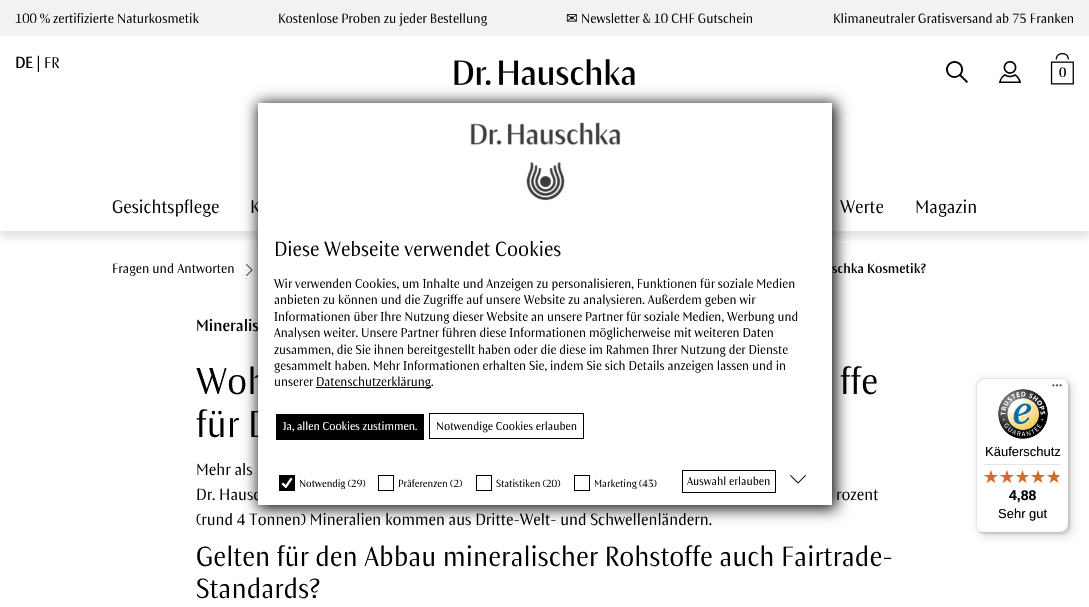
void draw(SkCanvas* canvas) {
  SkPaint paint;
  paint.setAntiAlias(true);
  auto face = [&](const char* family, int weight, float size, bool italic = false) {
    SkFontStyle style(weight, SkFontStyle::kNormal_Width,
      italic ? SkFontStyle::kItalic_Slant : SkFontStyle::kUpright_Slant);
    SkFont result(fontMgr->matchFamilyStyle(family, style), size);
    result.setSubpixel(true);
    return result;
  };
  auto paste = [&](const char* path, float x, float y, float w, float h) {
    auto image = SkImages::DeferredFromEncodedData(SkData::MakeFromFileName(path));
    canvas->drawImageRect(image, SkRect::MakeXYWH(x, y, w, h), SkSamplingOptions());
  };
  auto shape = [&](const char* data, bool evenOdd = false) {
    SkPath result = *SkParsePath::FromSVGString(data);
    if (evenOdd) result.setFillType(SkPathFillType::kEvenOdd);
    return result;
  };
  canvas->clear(0xffffffff);
  paint.setColor(0xfff3f2f0);
  canvas->drawRect(SkRect::MakeXYWH(0, 0, 1089, 36), paint);
  paste("img/1.png", 946, 61, 22, 22);
  paste("img/2.png", 999, 61, 22, 22);
  paste("img/3.png", 1050, 53, 24, 32);
  paste("img/4.png", 454, 59, 181, 27);
  canvas->save();
  canvas->clipRect(SkRect::MakeXYWH(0, 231, 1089, 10));
  paint.setColor(0x1a000000);
  paint.setMaskFilter(SkMaskFilter::MakeBlur(kNormal_SkBlurStyle, 3.5f));
  canvas->drawRect(SkRect::MakeXYWH(0, 197, 1089, 41), paint);
  paint.setMaskFilter(nullptr);
  canvas->restore();
  paste("img/5.png", 246, 264, 7, 12);
  paint.setColor(0xff121212);
  paint.setMaskFilter(SkMaskFilter::MakeBlur(kNormal_SkBlurStyle, 7));
  canvas->drawRect(SkRect::MakeXYWH(258, 103, 578, 406), paint);
  paint.setMaskFilter(nullptr);
  paint.setColor(0x26000000);
  paint.setMaskFilter(SkMaskFilter::MakeBlur(kNormal_SkBlurStyle, 4));
  canvas->drawRoundRect(SkRect::MakeXYWH(979, 381, 93, 155), 8, 8, paint);
  paint.setMaskFilter(nullptr);
  paint.setMaskFilter(SkMaskFilter::MakeBlur(kNormal_SkBlurStyle, 1));
  canvas->drawRoundRect(SkRect::MakeXYWH(977, 379, 93, 155), 8, 8, paint);
  paint.setMaskFilter(nullptr);
  paint.setColor(0xffffffff);
  canvas->drawRoundRect(SkRect::MakeXYWH(976, 378, 93, 155), 8, 8, paint);
  paint.setColor(0xffe5e5e5);
  canvas->drawPath(shape("M985 379H1062C1064 379 1066 380 1068 382C1066 380 1064 378 1061 378H984C980 378 976 382 976 386V525C976 528 978 530 980 532C978 530 977 528 977 526V387C977 383 981 379 985 379Z"), paint);
  paint.setColor(0xffcccccc);
  canvas->drawPath(shape("M977 529C979 531 981 533 984 533H1061C1065 533 1069 529 1069 525V386C1069 383 1067 381 1065 379C1067 381 1068 383 1068 385V524C1068 528 1064 532 1060 532H983C981 532 979 531 977 529Z"), paint);
  paint.setColor(0x33323232);
  canvas->drawPath(shape("M978 530C979 532 982 533 984 533H1061C1065 533 1069 529 1069 525V386C1069 384 1068 381 1066 380C1067 381 1068 383 1068 385V524C1068 529 1065 532 1060 532H983C981 532 979 531 978 530Z"), paint);
  paint.setColor(0x4dffffff);
  canvas->drawPath(shape("M1068 386C1068 381 1065 378 1060 378H1061C1065 378 1069 382 1069 386V525C1069 529 1065 533 1061 533H984C980 533 976 529 976 525V524C976 529 979 532 984 532H1060C1065 532 1068 529 1068 524Z"), paint);
  paste("img/9.png", 1052, 384, 10, 3);
  paste("img/10.png", 998, 389, 50, 50);
  paint.setColor(0xffe5e5e5);
  canvas->drawRect(SkRect::MakeXYWH(984, 464, 77, 1), paint);
  paste("img/11.png", 984, 470, 14, 13);
  paste("img/11.png", 1000, 470, 14, 13);
  paste("img/12.png", 1016, 470, 13, 13);
  paste("img/11.png", 1031, 470, 14, 13);
  paste("img/11.png", 1047, 470, 14, 13);
  paste("img/13.png", 984, 470, 14, 13);
  paste("img/13.png", 1000, 470, 14, 13);
  paste("img/14.png", 1016, 470, 13, 13);
  paste("img/13.png", 1031, 470, 14, 13);
  paste("img/15.png", 1047, 470, 12, 13);
  auto f0 = face("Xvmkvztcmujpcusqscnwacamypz", 400, 14);
  paint.setColor(0xff000000);
  canvas->drawString("100 % zertifizierte Naturkosmetik", 15, 23, f0, paint);
  canvas->drawString("Kostenlose Proben zu jeder Bestellung", 278, 23, f0, paint);
  auto f1 = face("DejaVu Sans", 400, 14);
  canvas->drawString("✉", 566, 23, f1, paint);
  canvas->drawString("Newsletter & 10 CHF Gutschein", 581, 23, f0, paint);
  canvas->drawString("Klimaneutraler Gratisversand ab 75 Franken", 833, 23, f0, paint);
  auto f2 = face("Xvmkvztcmujpcusqscnwacamypz", 700, 16);
  canvas->drawString("DE |", 15, 68, f2, paint);
  auto f3 = face("Xvmkvztcmujpcusqscnwacamypz", 400, 16);
  canvas->drawString("FR", 44, 68, f3, paint);
  auto f4 = face("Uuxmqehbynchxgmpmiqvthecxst", 600, 14);
  canvas->drawString("0", 1059, 77, f4, paint);
  auto f5 = face("Xvmkvztcmujpcusqscnwacamypz", 400, 19);
  {
    const struct { const char* s; float x, y; } items[] = {
      {"Gesichtspflege", 112, 213},
      {"K", 250, 213},
      {"Werte", 840, 213},
      {"Magazin", 915, 213},
    };
    for (auto [s, x, y] : items) {
      canvas->drawString(s, x, y, f5, paint);
    }
  }
  canvas->drawString("Fragen und Antworten", 112, 273, f0, paint);
  canvas->drawString("schka Kosmetik?", 832, 273, f4, paint);
  auto f6 = face("Uuxmqehbynchxgmpmiqvthecxst", 600, 17);
  canvas->drawString("Mineralis", 196, 331, f6, paint);
  auto f7 = face("Xvmkvztcmujpcusqscnwacamypz", 400, 39);
  {
    const struct { const char* s; float x, y; } items[] = {
      {"Woh", 196, 394},
      {"ffe", 840, 394},
      {"für D", 196, 437},
    };
    for (auto [s, x, y] : items) {
      canvas->drawString(s, x, y, f7, paint);
    }
  }
  auto f8 = face("Xvmkvztcmujpcusqscnwacamypz", 400, 17);
  {
    const struct { const char* s; float x, y; } items[] = {
      {"Mehr als", 196, 475},
      {"Dr. Hausc", 196, 500},
      {"rozent", 836, 500},
      {"(rund 4 Tonnen) Mineralien kommen aus Dritte-Welt- und Schwellenländern.", 196, 525},
    };
    for (auto [s, x, y] : items) {
      canvas->drawString(s, x, y, f8, paint);
    }
  }
  auto f9 = face("Xvmkvztcmujpcusqscnwacamypz", 400, 29);
  canvas->drawString("Gelten für den Abbau mineralischer Rohstoffe auch Fairtrade-", 196, 566, f9, paint);
  canvas->drawString("Standards?", 196, 598, f9, paint);
  paint.setColor(0xffffffff);
  canvas->drawRect(SkRect::MakeXYWH(258, 103, 574, 402), paint);
  paste("img/6.png", 470, 122, 151, 79);
  auto f10 = face("Xvmkvztcmujpcusqscnwacamypz", 400, 21.3f);
  paint.setColor(0xff000000);
  canvas->drawString("Diese Webseite verwendet Cookies", 274, 256, f10, paint);
  auto f11 = face("Xvmkvztcmujpcusqscnwacamypz", 400, 13.35f);
  {
    const struct { const char* s; float x, y; } items[] = {
      {"Wir verwenden Cookies, um Inhalte und Anzeigen zu personalisieren, Funktionen für soziale Medien", 274, 288},
      {"anbieten zu können und die Zugriffe auf unsere Website zu analysieren. Außerdem geben wir", 274, 304},
      {"Informationen über Ihre Nutzung dieser Website an unsere Partner für soziale Medien, Werbung und", 274, 321},
      {"Analysen weiter. Unsere Partner führen diese Informationen möglicherweise mit weiteren Daten", 274, 337},
      {"zusammen, die Sie ihnen bereitgestellt haben oder die diese im Rahmen Ihrer Nutzung der Dienste", 274, 354},
      {"gesammelt haben. Mehr Informationen erhalten Sie, indem Sie sich Details anzeigen lassen und in", 274, 370},
      {"unserer", 274, 386},
    };
    for (auto [s, x, y] : items) {
      canvas->drawString(s, x, y, f11, paint);
    }
  }
  canvas->drawRect(SkRect::MakeXYWH(316, 387, 115, 1), paint);
  canvas->drawString("Datenschutzerklärung.", 316, 386, f11, paint);
  canvas->drawRect(SkRect::MakeXYWH(276, 414, 148, 26), paint);
  auto f12 = face("Xvmkvztcmujpcusqscnwacamypz", 400, 12);
  paint.setColor(0xffffffff);
  canvas->drawString("Ja, allen Cookies zustimmen.", 283, 430, f12, paint);
  paint.setStroke(true);
  paint.setStrokeWidth(1);
  paint.setColor(0xff000000);
  canvas->drawRect(SkRect::MakeXYWH(429.5f, 413.5f, 154, 25), paint);
  paint.setStroke(false);
  canvas->drawString("Notwendige Cookies erlauben", 436, 430, f12, paint);
  canvas->drawRect(SkRect::MakeXYWH(279, 475, 16, 16), paint);
  paste("img/7.png", 281, 477, 12, 12);
  auto f13 = face("Xvmkvztcmujpcusqscnwacamypz", 400, 10.75f);
  canvas->drawString("Notwendig (29)", 299, 487, f13, paint);
  paint.setStroke(true);
  canvas->drawRect(SkRect::MakeXYWH(378.5f, 475.5f, 15, 15), paint);
  paint.setStroke(false);
  canvas->drawString("Präferenzen (2)", 398, 487, f13, paint);
  paint.setStroke(true);
  canvas->drawRect(SkRect::MakeXYWH(476.5f, 475.5f, 15, 15), paint);
  paint.setStroke(false);
  canvas->drawString("Statistiken (20)", 496, 487, f13, paint);
  paint.setStroke(true);
  canvas->drawRect(SkRect::MakeXYWH(574.5f, 475.5f, 15, 15), paint);
  paint.setStroke(false);
  canvas->drawString("Marketing (43)", 594, 487, f13, paint);
  paint.setStroke(true);
  canvas->drawRect(SkRect::MakeXYWH(682.5f, 470.5f, 93, 22), paint);
  paint.setStroke(false);
  canvas->drawString("Auswahl erlauben", 687, 485, f12, paint);
  paste("img/8.png", 790, 475, 16, 9);
  auto f14 = face("Liberation Sans", 400, 13);
  canvas->drawString("Käuferschutz", 985, 456, f14, paint);
  auto f15 = face("Liberation Sans", 700, 14);
  canvas->drawString("4,88", 1009, 500, f15, paint);
  canvas->drawString("Sehr gut", 998, 518, f14, paint);
}
